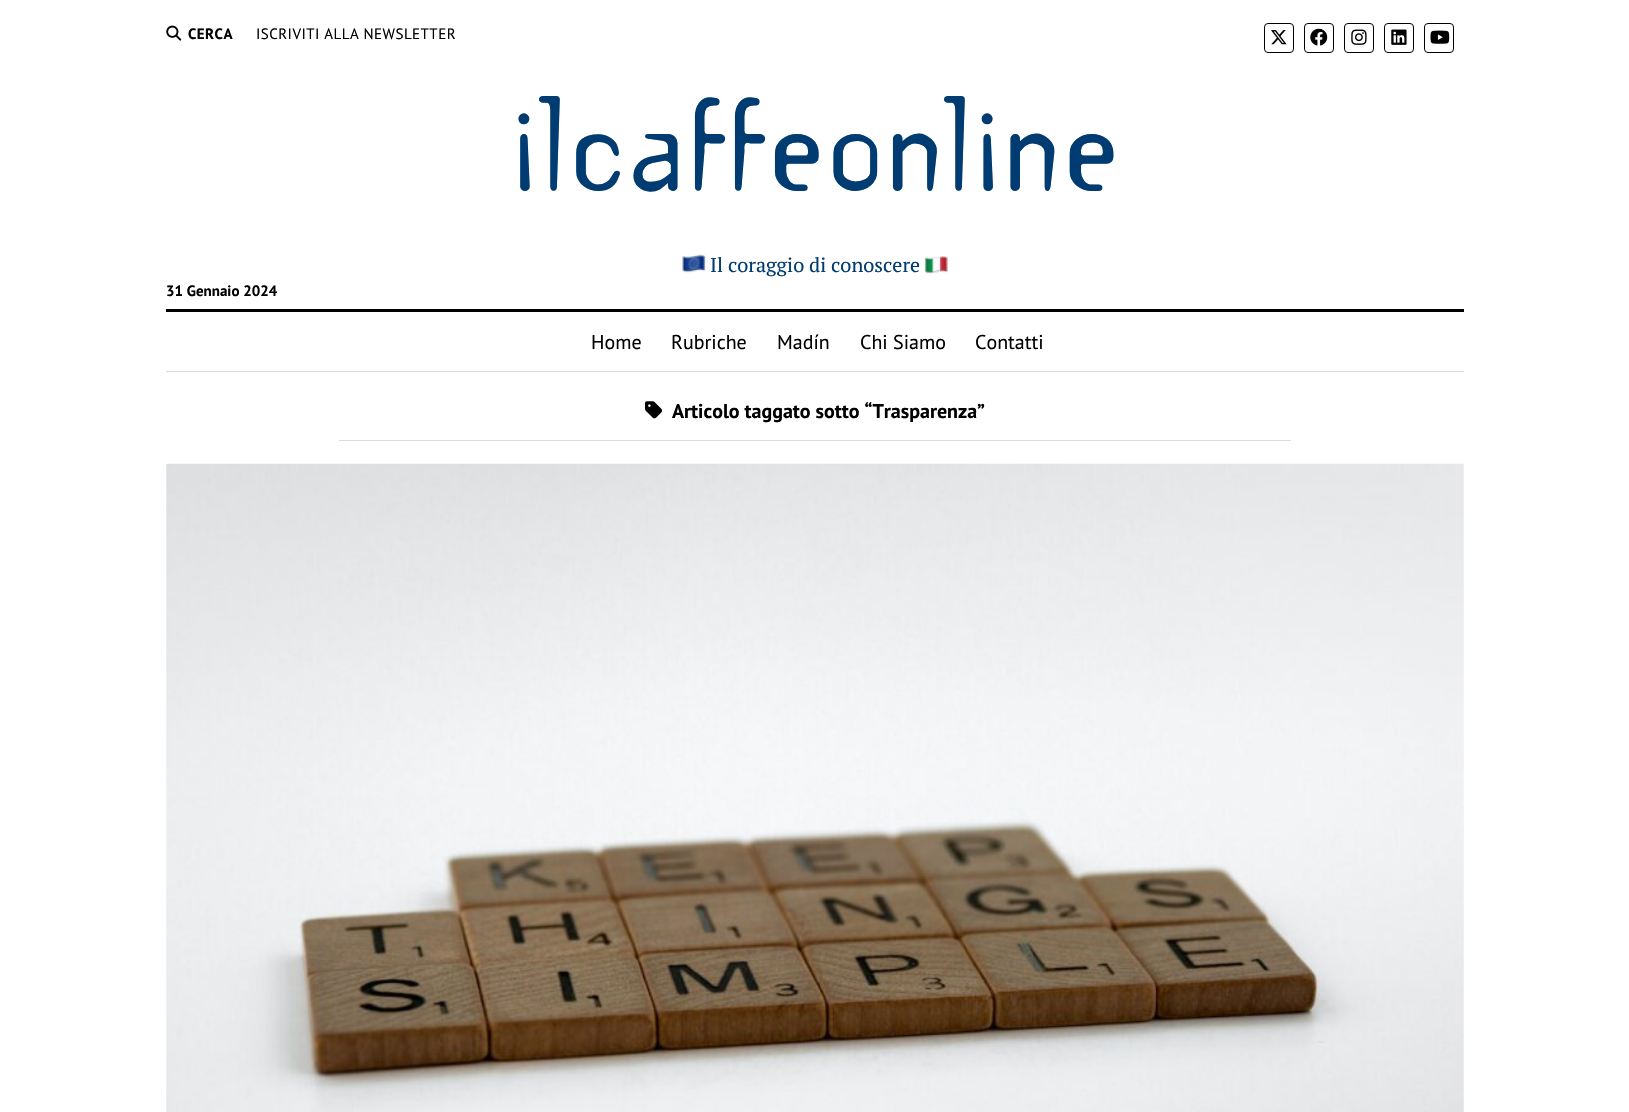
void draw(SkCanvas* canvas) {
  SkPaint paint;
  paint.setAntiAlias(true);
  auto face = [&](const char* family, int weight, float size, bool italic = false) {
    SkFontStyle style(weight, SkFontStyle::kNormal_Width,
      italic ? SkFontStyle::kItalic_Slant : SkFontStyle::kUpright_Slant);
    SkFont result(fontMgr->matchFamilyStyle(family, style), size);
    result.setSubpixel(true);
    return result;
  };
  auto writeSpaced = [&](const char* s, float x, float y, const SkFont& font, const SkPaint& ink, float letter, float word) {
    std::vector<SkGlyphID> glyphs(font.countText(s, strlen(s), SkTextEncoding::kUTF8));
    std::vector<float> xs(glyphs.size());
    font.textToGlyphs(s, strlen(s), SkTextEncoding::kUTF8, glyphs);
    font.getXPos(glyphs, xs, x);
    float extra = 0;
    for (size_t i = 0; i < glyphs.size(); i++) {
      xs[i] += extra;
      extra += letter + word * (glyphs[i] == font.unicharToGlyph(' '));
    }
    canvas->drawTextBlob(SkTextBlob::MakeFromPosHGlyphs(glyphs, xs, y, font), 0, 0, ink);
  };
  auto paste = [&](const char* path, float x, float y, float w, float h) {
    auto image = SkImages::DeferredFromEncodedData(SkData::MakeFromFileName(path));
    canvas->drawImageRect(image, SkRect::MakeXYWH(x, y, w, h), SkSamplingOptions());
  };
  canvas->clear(0xffffffff);
  paste("img/1.png", 166, 25, 16, 16);
  paint.setStroke(true);
  paint.setStrokeWidth(1);
  paint.setColor(0xff000000);
  canvas->drawRoundRect(SkRect::MakeXYWH(1264.5f, 23.5f, 29, 29), 3.5f, 3.5f, paint);
  paste("img/2.png", 1271, 30, 16, 15);
  canvas->drawRoundRect(SkRect::MakeXYWH(1304.5f, 23.5f, 29, 29), 3.5f, 3.5f, paint);
  paste("img/3.png", 1310, 28, 18, 18);
  canvas->drawRoundRect(SkRect::MakeXYWH(1344.5f, 23.5f, 29, 29), 3.5f, 3.5f, paint);
  paste("img/4.png", 1351, 29, 16, 16);
  canvas->drawRoundRect(SkRect::MakeXYWH(1384.5f, 23.5f, 29, 29), 3.5f, 3.5f, paint);
  paste("img/5.png", 1391, 29, 16, 16);
  canvas->drawRoundRect(SkRect::MakeXYWH(1424.5f, 23.5f, 29, 29), 3.5f, 3.5f, paint);
  paste("img/6.png", 1430, 30, 20, 14);
  paste("img/7.png", 682, 254, 24, 19);
  paste("img/8.png", 924, 256, 24, 18);
  paint.setStroke(false);
  {
    const struct { float x, y, w, h; SkColor color; } items[] = {
      {166, 309, 1298, 3, 0xff000000},
      {166, 371, 1298, 1, 0xffdcdcdc},
      {339, 440, 952, 1, 0xffdcdcdc},
    };
    for (auto [x, y, w, h, color] : items) {
      paint.setColor(color);
      canvas->drawRect(SkRect::MakeXYWH(x, y, w, h), paint);
    }
  }
  paste("img/9.png", 645, 401, 18, 18);
  paste("img/10.png", 166, 463, 1298, 649);
  auto f0 = face("PT Sans", 700, 15);
  paint.setColor(0xff000000);
  writeSpaced("CERCA", 188, 39, f0, paint, 0.45f, 0);
  auto f1 = face("PT Sans", 400, 15);
  writeSpaced("ISCRIVITI ALLA NEWSLETTER", 256, 39, f1, paint, 0.45f, 0);
  auto f2 = face("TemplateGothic", 400, 118.75f);
  paint.setColor(0xff003c71);
  canvas->drawString("ilcaffeonline", 510, 191, f2, paint);
  auto f3 = face("PT Serif", 400, 20);
  canvas->drawString("Il coraggio di conoscere", 710, 272, f3, paint);
  paint.setColor(0xff000000);
  canvas->drawString("31 Gennaio 2024", 166, 296, f0, paint);
  auto f4 = face("PT Sans", 400, 20);
  {
    const struct { const char* s; float x, y; } items[] = {
      {"Home", 591, 349},
      {"Rubriche", 671, 349},
      {"Madín", 777, 349},
      {"Chi Siamo", 860, 349},
      {"Contatti", 975, 349},
    };
    for (auto [s, x, y] : items) {
      canvas->drawString(s, x, y, f4, paint);
    }
  }
  auto f5 = face("PT Sans", 700, 20);
  canvas->drawString("Articolo taggato sotto “Trasparenza”", 672, 418, f5, paint);
}
